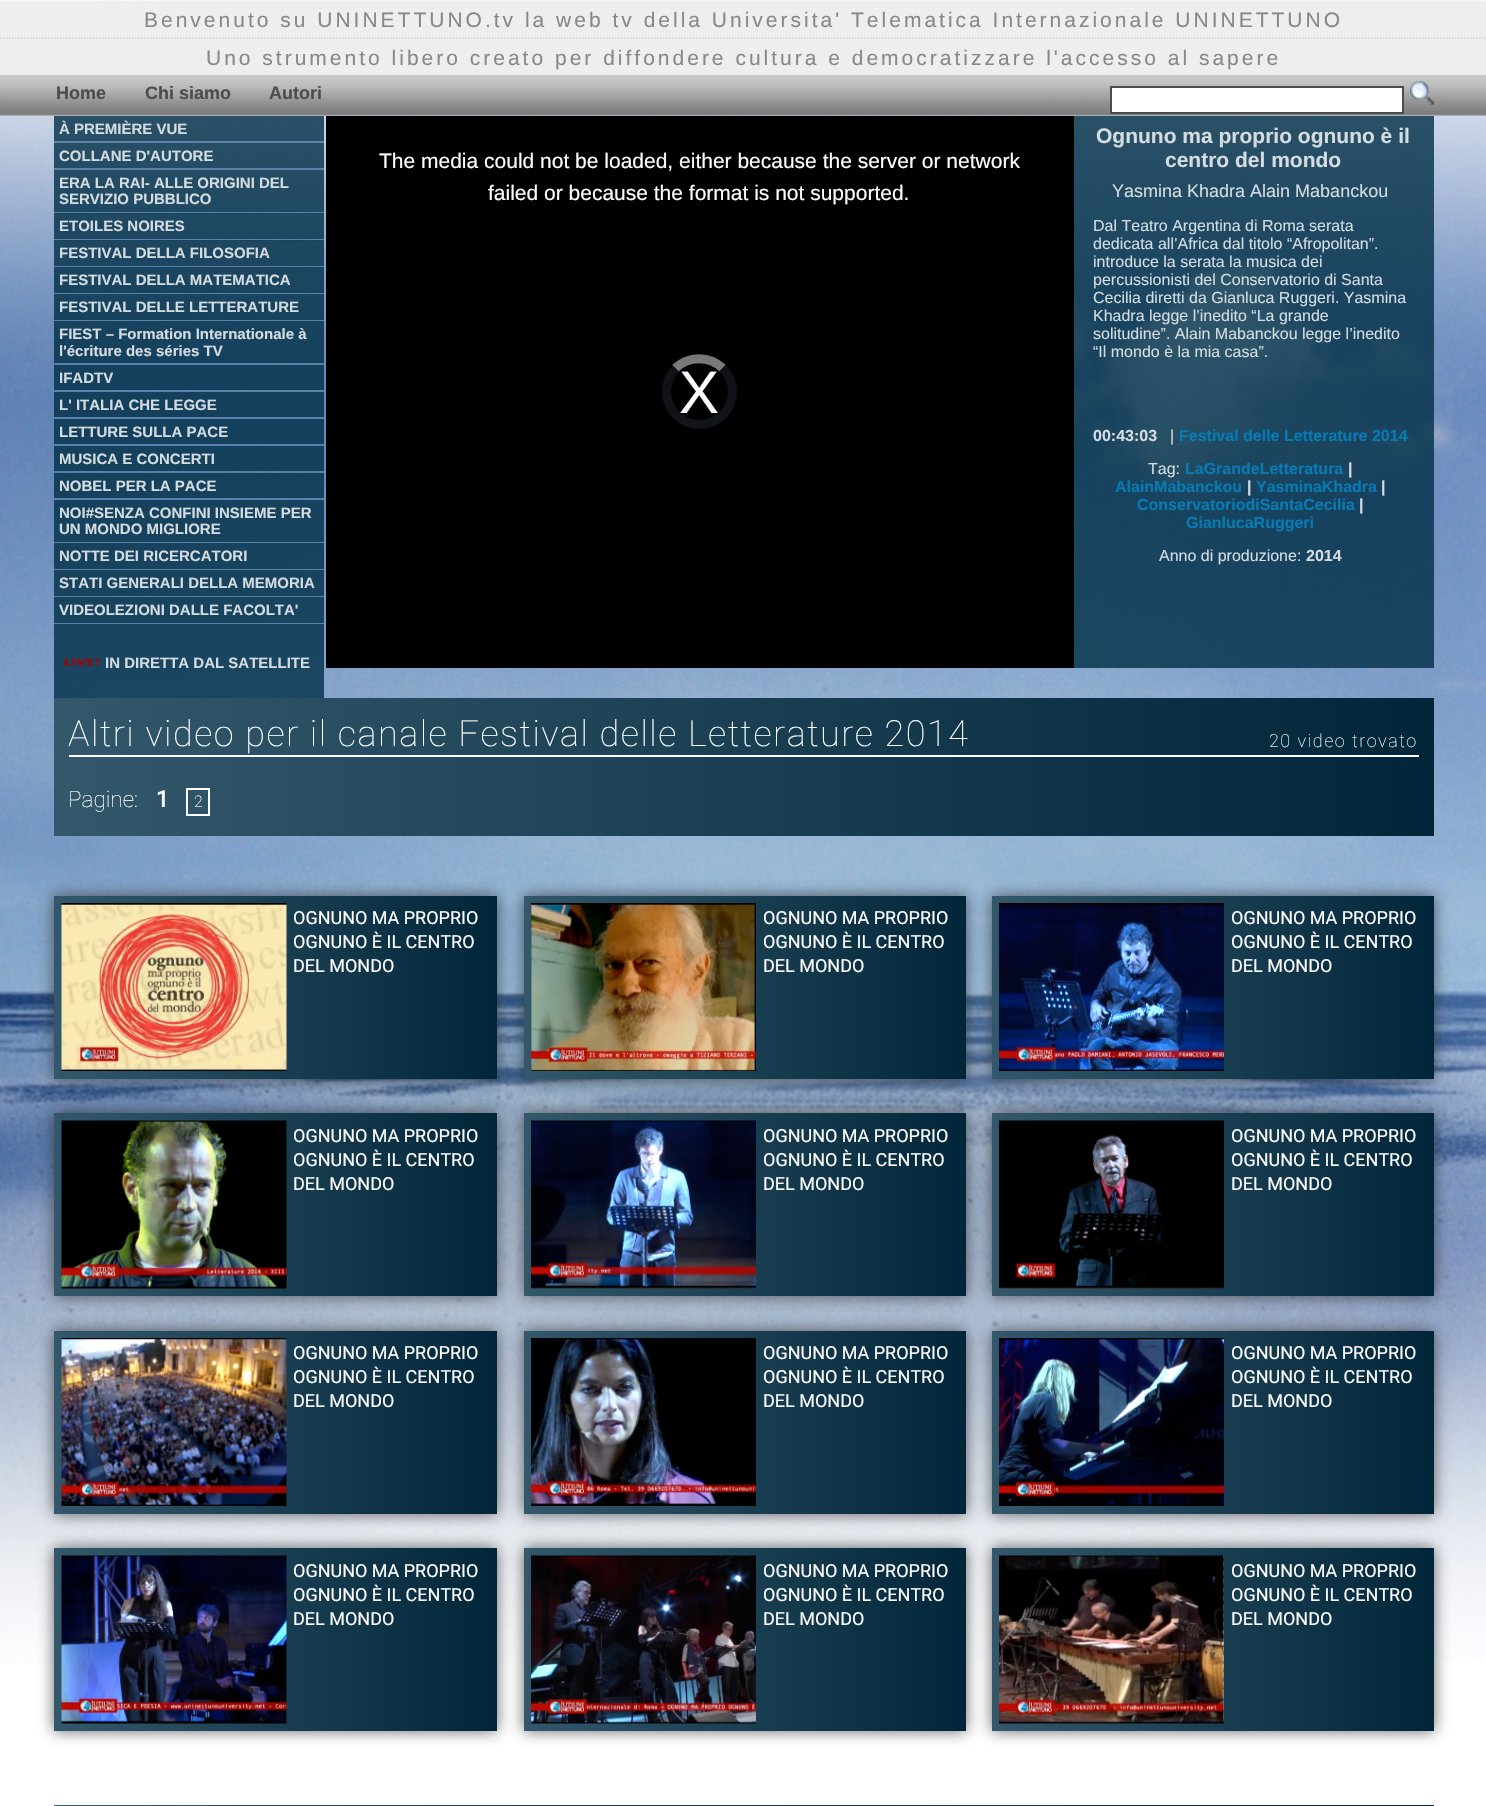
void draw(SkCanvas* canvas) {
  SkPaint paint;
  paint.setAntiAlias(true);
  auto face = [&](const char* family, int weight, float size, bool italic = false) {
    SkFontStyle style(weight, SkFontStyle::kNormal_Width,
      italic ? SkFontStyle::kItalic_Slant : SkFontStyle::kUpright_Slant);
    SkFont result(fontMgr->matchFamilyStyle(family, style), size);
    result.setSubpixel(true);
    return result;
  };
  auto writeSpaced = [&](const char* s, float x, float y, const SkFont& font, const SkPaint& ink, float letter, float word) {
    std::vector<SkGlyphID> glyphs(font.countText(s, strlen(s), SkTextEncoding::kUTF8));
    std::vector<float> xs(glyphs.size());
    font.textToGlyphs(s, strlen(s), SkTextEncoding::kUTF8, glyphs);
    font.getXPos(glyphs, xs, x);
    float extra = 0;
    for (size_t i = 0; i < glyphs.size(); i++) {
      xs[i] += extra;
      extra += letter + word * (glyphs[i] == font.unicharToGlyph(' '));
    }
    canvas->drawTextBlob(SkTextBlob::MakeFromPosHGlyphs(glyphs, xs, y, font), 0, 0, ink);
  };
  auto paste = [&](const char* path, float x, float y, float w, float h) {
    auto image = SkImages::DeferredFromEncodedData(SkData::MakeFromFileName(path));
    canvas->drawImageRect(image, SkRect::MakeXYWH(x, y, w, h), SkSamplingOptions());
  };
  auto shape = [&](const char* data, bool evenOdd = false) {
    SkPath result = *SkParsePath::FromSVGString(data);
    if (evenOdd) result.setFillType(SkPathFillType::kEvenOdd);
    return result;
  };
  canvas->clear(0xffffffff);
  paste("img/1.png", 0, 0, 1486, 1664);
  paint.setColor(0xfff4f4f4);
  canvas->drawRect(SkRect::MakeXYWH(0, 37, 1486, 1), paint);
  paint.setColor(0xffeeeeee);
  canvas->drawRect(SkRect::MakeXYWH(0, 1, 1486, 36), paint);
  paint.setStroke(true);
  paint.setStrokeWidth(1.5f);
  paint.setColor(0xffcccccc);
  paint.setPathEffect(SkDashPathEffect::Make({{1.5f, 1.5f}}, 0));
  canvas->drawPath(shape("M0 38H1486.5"), paint);
  paint.setPathEffect(nullptr);
  paint.setStroke(false);
  paint.setColor(0xffeeeeee);
  canvas->drawRect(SkRect::MakeXYWH(0, 39, 1486, 36), paint);
  paste("img/2.png", 0, 75, 1486, 41);
  paint.setColor(0xffffffff);
  canvas->drawRect(SkRect::MakeXYWH(1111, 87, 292, 26), paint);
  paint.setStroke(true);
  paint.setStrokeWidth(2);
  paint.setColor(0xff4c4c4c);
  canvas->drawRect(SkRect::MakeXYWH(1111, 87, 292, 26), paint);
  paste("img/3.png", 1410, 81, 24, 24);
  paint.setStroke(false);
  {
    const struct { float x, y, w, h; SkColor color; } items[] = {
      {54, 116, 270, 25, 0xcc002e46},
      {54, 141, 270, 2, 0xff6083ac},
      {54, 143, 270, 25, 0xcc002e46},
      {54, 168, 270, 2, 0xff5f82ac},
      {54, 170, 270, 43, 0xcc002e46},
      {54, 212, 270, 2, 0xcc6e90be},
      {54, 213, 270, 27, 0xcc002e46},
      {54, 239, 270, 2, 0xcc6e90be},
      {54, 240, 270, 27, 0xcc002e46},
      {54, 266, 270, 2, 0xcc6e90be},
      {54, 267, 270, 27, 0xcc002e46},
      {54, 293, 270, 2, 0xcc6e90be},
      {54, 294, 270, 27, 0xcc002e46},
      {54, 320, 270, 2, 0xcc6e90be},
      {54, 321, 270, 42, 0xcc002e46},
      {54, 363, 270, 2, 0xff5c80ab},
      {54, 365, 270, 25, 0xcc002e46},
      {54, 390, 270, 2, 0xff5c80ab},
      {54, 392, 270, 27, 0xcc002e46},
      {54, 417, 270, 2, 0xcc6e90be},
      {54, 419, 270, 25, 0xcc002e46},
      {54, 444, 270, 2, 0xff5c80ab},
      {54, 446, 270, 25, 0xcc002e46},
      {54, 471, 270, 2, 0xff5c80ab},
      {54, 473, 270, 27, 0xcc002e46},
      {54, 498, 270, 2, 0xcc6e90be},
      {54, 500, 270, 43, 0xcc002e46},
      {54, 542, 270, 2, 0xcc6e90be},
      {54, 543, 270, 27, 0xcc002e46},
      {54, 569, 270, 2, 0xcc6e90be},
      {54, 570, 270, 27, 0xcc002e46},
      {54, 596, 270, 2, 0xcc6e90be},
      {54, 597, 270, 27, 0xcc002e46},
      {54, 623, 270, 2, 0xcc6e90be},
      {54, 624, 270, 74, 0xcc002e46},
    };
    for (auto [x, y, w, h, color] : items) {
      paint.setColor(color);
      canvas->drawRect(SkRect::MakeXYWH(x, y, w, h), paint);
    }
  }
  paste("img/4.png", 64, 658, 36, 9);
  paint.setColor(0xff000000);
  canvas->drawRect(SkRect::MakeXYWH(326, 116, 748, 552), paint);
  paint.setStroke(true);
  paint.setStrokeWidth(9);
  paint.setColor(0xff1a1e26);
  canvas->drawCircle(699.5f, 391.5f, 33, paint);
  paint.setColor(0xffd9d9d9);
  canvas->drawPath(shape("M675.5 368C688.5 355.5 709.5 355.5 722.5 368M675.5 368C688.5 355.5 709.5 355.5 722.5 368"), paint);
  paint.setStroke(false);
  {
    const SkColor colors[] = {0xcc000000, 0x00000000};
    const float stops[] = {0, 1};
    const SkPoint ends[] = {{700, 115}, {700, 668}};
    paint.setShader(SkGradientShader::MakeLinear(ends, colors, stops, 2, SkTileMode::kClamp));
    paint.setAlpha(255);
  }
  canvas->drawRect(SkRect::MakeXYWH(662, 354, 75, 75), paint);
  paint.setShader(nullptr);
  paint.setColor(0xcc002e46);
  canvas->drawRect(SkRect::MakeXYWH(1074, 116, 360, 552), paint);
  {
    const SkColor colors[] = {0xff33586b, 0xff012639};
    const float stops[] = {0, 1};
    const SkPoint ends[] = {{54, 734}, {1434, 734}};
    paint.setShader(SkGradientShader::MakeLinear(ends, colors, stops, 2, SkTileMode::kClamp));
    paint.setAlpha(255);
  }
  canvas->drawRect(SkRect::MakeXYWH(54, 698, 1380, 73), paint);
  paint.setShader(nullptr);
  paint.setColor(0xffffffff);
  canvas->drawRect(SkRect::MakeXYWH(69, 755, 1350, 2), paint);
  {
    const SkColor colors[] = {0xff33586b, 0xff012639};
    const float stops[] = {0, 1};
    const SkPoint ends[] = {{54, 803}, {1434, 803}};
    paint.setShader(SkGradientShader::MakeLinear(ends, colors, stops, 2, SkTileMode::kClamp));
    paint.setAlpha(255);
  }
  canvas->drawRect(SkRect::MakeXYWH(54, 771, 1380, 65), paint);
  paint.setStroke(true);
  paint.setStrokeWidth(2);
  paint.setShader(nullptr);
  paint.setColor(0xffffffff);
  canvas->drawRect(SkRect::MakeXYWH(187, 789, 22, 26), paint);
  paint.setStroke(false);
  paint.setColor(0xbf323232);
  paint.setMaskFilter(SkMaskFilter::MakeBlur(kNormal_SkBlurStyle, 7.5f));
  canvas->drawRect(SkRect::MakeXYWH(54, 896, 443, 183), paint);
  paint.setMaskFilter(nullptr);
  {
    const SkColor colors[] = {0xff33586b, 0xff012639};
    const float stops[] = {0, 1};
    const SkPoint ends[] = {{54, 987}, {497, 987}};
    paint.setShader(SkGradientShader::MakeLinear(ends, colors, stops, 2, SkTileMode::kClamp));
    paint.setAlpha(255);
  }
  canvas->drawRect(SkRect::MakeXYWH(54, 896, 443, 183), paint);
  paste("img/5.png", 61, 903, 226, 168);
  paint.setShader(nullptr);
  paint.setColor(0xbf323232);
  paint.setMaskFilter(SkMaskFilter::MakeBlur(kNormal_SkBlurStyle, 7.5f));
  canvas->drawRect(SkRect::MakeXYWH(524, 896, 442, 183), paint);
  paint.setMaskFilter(nullptr);
  {
    const SkColor colors[] = {0xff33586b, 0xff012639};
    const float stops[] = {0, 1};
    const SkPoint ends[] = {{524, 987}, {966, 987}};
    paint.setShader(SkGradientShader::MakeLinear(ends, colors, stops, 2, SkTileMode::kClamp));
    paint.setAlpha(255);
  }
  canvas->drawRect(SkRect::MakeXYWH(524, 896, 442, 183), paint);
  paste("img/6.png", 531, 903, 225, 168);
  paint.setShader(nullptr);
  paint.setColor(0xbf323232);
  paint.setMaskFilter(SkMaskFilter::MakeBlur(kNormal_SkBlurStyle, 7.5f));
  canvas->drawRect(SkRect::MakeXYWH(992, 896, 442, 183), paint);
  paint.setMaskFilter(nullptr);
  {
    const SkColor colors[] = {0xff33586b, 0xff012639};
    const float stops[] = {0, 1};
    const SkPoint ends[] = {{992, 987}, {1434, 987}};
    paint.setShader(SkGradientShader::MakeLinear(ends, colors, stops, 2, SkTileMode::kClamp));
    paint.setAlpha(255);
  }
  canvas->drawRect(SkRect::MakeXYWH(992, 896, 442, 183), paint);
  paste("img/7.png", 999, 903, 225, 168);
  paint.setShader(nullptr);
  paint.setColor(0xbf323232);
  paint.setMaskFilter(SkMaskFilter::MakeBlur(kNormal_SkBlurStyle, 7.5f));
  canvas->drawRect(SkRect::MakeXYWH(54, 1113, 443, 183), paint);
  paint.setMaskFilter(nullptr);
  {
    const SkColor colors[] = {0xff33586b, 0xff012639};
    const float stops[] = {0, 1};
    const SkPoint ends[] = {{54, 1205}, {497, 1205}};
    paint.setShader(SkGradientShader::MakeLinear(ends, colors, stops, 2, SkTileMode::kClamp));
    paint.setAlpha(255);
  }
  canvas->drawRect(SkRect::MakeXYWH(54, 1113, 443, 183), paint);
  paste("img/8.png", 61, 1120, 226, 169);
  paint.setShader(nullptr);
  paint.setColor(0xbf323232);
  paint.setMaskFilter(SkMaskFilter::MakeBlur(kNormal_SkBlurStyle, 7.5f));
  canvas->drawRect(SkRect::MakeXYWH(524, 1113, 442, 183), paint);
  paint.setMaskFilter(nullptr);
  {
    const SkColor colors[] = {0xff33586b, 0xff012639};
    const float stops[] = {0, 1};
    const SkPoint ends[] = {{524, 1205}, {966, 1205}};
    paint.setShader(SkGradientShader::MakeLinear(ends, colors, stops, 2, SkTileMode::kClamp));
    paint.setAlpha(255);
  }
  canvas->drawRect(SkRect::MakeXYWH(524, 1113, 442, 183), paint);
  paste("img/9.png", 531, 1120, 225, 169);
  paint.setShader(nullptr);
  paint.setColor(0xbf323232);
  paint.setMaskFilter(SkMaskFilter::MakeBlur(kNormal_SkBlurStyle, 7.5f));
  canvas->drawRect(SkRect::MakeXYWH(992, 1113, 442, 183), paint);
  paint.setMaskFilter(nullptr);
  {
    const SkColor colors[] = {0xff33586b, 0xff012639};
    const float stops[] = {0, 1};
    const SkPoint ends[] = {{992, 1205}, {1434, 1205}};
    paint.setShader(SkGradientShader::MakeLinear(ends, colors, stops, 2, SkTileMode::kClamp));
    paint.setAlpha(255);
  }
  canvas->drawRect(SkRect::MakeXYWH(992, 1113, 442, 183), paint);
  paste("img/10.png", 999, 1120, 225, 169);
  paint.setShader(nullptr);
  paint.setColor(0xbf323232);
  paint.setMaskFilter(SkMaskFilter::MakeBlur(kNormal_SkBlurStyle, 7.5f));
  canvas->drawRect(SkRect::MakeXYWH(54, 1331, 443, 183), paint);
  paint.setMaskFilter(nullptr);
  {
    const SkColor colors[] = {0xff33586b, 0xff012639};
    const float stops[] = {0, 1};
    const SkPoint ends[] = {{54, 1422}, {497, 1422}};
    paint.setShader(SkGradientShader::MakeLinear(ends, colors, stops, 2, SkTileMode::kClamp));
    paint.setAlpha(255);
  }
  canvas->drawRect(SkRect::MakeXYWH(54, 1331, 443, 183), paint);
  paste("img/11.png", 61, 1338, 226, 168);
  paint.setShader(nullptr);
  paint.setColor(0xbf323232);
  paint.setMaskFilter(SkMaskFilter::MakeBlur(kNormal_SkBlurStyle, 7.5f));
  canvas->drawRect(SkRect::MakeXYWH(524, 1331, 442, 183), paint);
  paint.setMaskFilter(nullptr);
  {
    const SkColor colors[] = {0xff33586b, 0xff012639};
    const float stops[] = {0, 1};
    const SkPoint ends[] = {{524, 1422}, {966, 1422}};
    paint.setShader(SkGradientShader::MakeLinear(ends, colors, stops, 2, SkTileMode::kClamp));
    paint.setAlpha(255);
  }
  canvas->drawRect(SkRect::MakeXYWH(524, 1331, 442, 183), paint);
  paste("img/12.png", 531, 1338, 225, 168);
  paint.setShader(nullptr);
  paint.setColor(0xbf323232);
  paint.setMaskFilter(SkMaskFilter::MakeBlur(kNormal_SkBlurStyle, 7.5f));
  canvas->drawRect(SkRect::MakeXYWH(992, 1331, 442, 183), paint);
  paint.setMaskFilter(nullptr);
  {
    const SkColor colors[] = {0xff33586b, 0xff012639};
    const float stops[] = {0, 1};
    const SkPoint ends[] = {{992, 1422}, {1434, 1422}};
    paint.setShader(SkGradientShader::MakeLinear(ends, colors, stops, 2, SkTileMode::kClamp));
    paint.setAlpha(255);
  }
  canvas->drawRect(SkRect::MakeXYWH(992, 1331, 442, 183), paint);
  paste("img/13.png", 999, 1338, 225, 168);
  paint.setShader(nullptr);
  paint.setColor(0xbf323232);
  paint.setMaskFilter(SkMaskFilter::MakeBlur(kNormal_SkBlurStyle, 7.5f));
  canvas->drawRect(SkRect::MakeXYWH(54, 1548, 443, 183), paint);
  paint.setMaskFilter(nullptr);
  {
    const SkColor colors[] = {0xff33586b, 0xff012639};
    const float stops[] = {0, 1};
    const SkPoint ends[] = {{54, 1640}, {497, 1640}};
    paint.setShader(SkGradientShader::MakeLinear(ends, colors, stops, 2, SkTileMode::kClamp));
    paint.setAlpha(255);
  }
  canvas->drawRect(SkRect::MakeXYWH(54, 1548, 443, 183), paint);
  paste("img/14.png", 61, 1555, 226, 169);
  paint.setShader(nullptr);
  paint.setColor(0xbf323232);
  paint.setMaskFilter(SkMaskFilter::MakeBlur(kNormal_SkBlurStyle, 7.5f));
  canvas->drawRect(SkRect::MakeXYWH(524, 1548, 442, 183), paint);
  paint.setMaskFilter(nullptr);
  {
    const SkColor colors[] = {0xff33586b, 0xff012639};
    const float stops[] = {0, 1};
    const SkPoint ends[] = {{524, 1640}, {966, 1640}};
    paint.setShader(SkGradientShader::MakeLinear(ends, colors, stops, 2, SkTileMode::kClamp));
    paint.setAlpha(255);
  }
  canvas->drawRect(SkRect::MakeXYWH(524, 1548, 442, 183), paint);
  paste("img/15.png", 531, 1555, 225, 169);
  paint.setShader(nullptr);
  paint.setColor(0xbf323232);
  paint.setMaskFilter(SkMaskFilter::MakeBlur(kNormal_SkBlurStyle, 7.5f));
  canvas->drawRect(SkRect::MakeXYWH(992, 1548, 442, 183), paint);
  paint.setMaskFilter(nullptr);
  {
    const SkColor colors[] = {0xff33586b, 0xff012639};
    const float stops[] = {0, 1};
    const SkPoint ends[] = {{992, 1640}, {1434, 1640}};
    paint.setShader(SkGradientShader::MakeLinear(ends, colors, stops, 2, SkTileMode::kClamp));
    paint.setAlpha(255);
  }
  canvas->drawRect(SkRect::MakeXYWH(992, 1548, 442, 183), paint);
  paste("img/16.png", 999, 1555, 225, 169);
  {
    const SkColor colors[] = {0xff33586b, 0xff012639};
    const float stops[] = {0, 1};
    const SkPoint ends[] = {{54, 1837}, {1434, 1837}};
    paint.setShader(SkGradientShader::MakeLinear(ends, colors, stops, 2, SkTileMode::kClamp));
    paint.setAlpha(255);
  }
  canvas->drawRect(SkRect::MakeXYWH(54, 1805, 1380, 1), paint);
  auto f0 = face("Liberation Sans", 400, 21);
  paint.setShader(nullptr);
  paint.setColor(0xff888888);
  writeSpaced("Benvenuto su UNINETTUNO.tv la web tv della Universita' Telematica Internazionale UNINETTUNO", 144, 27, f0, paint, 3, 0);
  writeSpaced("Uno strumento libero creato per diffondere cultura e democratizzare l'accesso al sapere", 206, 65, f0, paint, 3, 0);
  auto f1 = face("Liberation Sans", 700, 18);
  paint.setColor(0xff4c4c4c);
  {
    const struct { const char* s; float x, y; } items[] = {
      {"Home", 56, 99},
      {"Chi siamo", 145, 99},
      {"Autori", 269, 99},
    };
    for (auto [s, x, y] : items) {
      canvas->drawString(s, x, y, f1, paint);
    }
  }
  auto f2 = face("Liberation Sans", 700, 15);
  paint.setColor(0xffd4dce0);
  {
    const struct { const char* s; float x, y; } items[] = {
      {"À PREMIÈRE VUE", 59, 134},
      {"COLLANE D'AUTORE", 59, 161},
      {"ERA LA RAI- ALLE ORIGINI DEL", 59, 188},
      {"SERVIZIO PUBBLICO", 59, 204},
      {"ETOILES NOIRES", 59, 231},
      {"FESTIVAL DELLA FILOSOFIA", 59, 258},
      {"FESTIVAL DELLA MATEMATICA", 59, 285},
      {"FESTIVAL DELLE LETTERATURE", 59, 312},
      {"FIEST – Formation Internationale à", 59, 339},
      {"l'écriture des séries TV", 59, 356},
      {"IFADTV", 59, 383},
      {"L' ITALIA CHE LEGGE", 59, 410},
      {"LETTURE SULLA PACE", 59, 437},
      {"MUSICA E CONCERTI", 59, 464},
      {"NOBEL PER LA PACE", 59, 491},
      {"NOI#SENZA CONFINI INSIEME PER", 59, 518},
      {"UN MONDO MIGLIORE", 59, 534},
      {"NOTTE DEI RICERCATORI", 59, 561},
      {"STATI GENERALI DELLA MEMORIA", 59, 588},
      {"VIDEOLEZIONI DALLE FACOLTA'", 59, 615},
      {"IN DIRETTA DAL SATELLITE", 105, 668},
    };
    for (auto [s, x, y] : items) {
      canvas->drawString(s, x, y, f2, paint);
    }
  }
  paint.setColor(0xffffffff);
  canvas->drawString("The media could not be loaded, either because the server or network", 379, 168, f0, paint);
  canvas->drawString("failed or because the format is not supported.", 488, 200, f0, paint);
  auto f3 = face("Liberation Sans", 400, 60);
  canvas->drawString("X", 679, 413, f3, paint);
  auto f4 = face("Liberation Sans", 700, 21);
  paint.setColor(0xffd4dce0);
  canvas->drawString("Ognuno ma proprio ognuno è il", 1096, 143, f4, paint);
  canvas->drawString("centro del mondo", 1165, 167, f4, paint);
  auto f5 = face("Liberation Sans", 400, 18);
  canvas->drawString("Yasmina Khadra Alain Mabanckou", 1112, 197, f5, paint);
  auto f6 = face("Liberation Sans", 400, 16);
  {
    const struct { const char* s; float x, y; } items[] = {
      {"Dal Teatro Argentina di Roma serata", 1093, 231},
      {"dedicata all’Africa dal titolo “Afropolitan”.", 1093, 249},
      {"introduce la serata la musica dei", 1093, 267},
      {"percussionisti del Conservatorio di Santa", 1093, 285},
      {"Cecilia diretti da Gianluca Ruggeri. Yasmina", 1093, 303},
      {"Khadra legge l’inedito “La grande", 1093, 321},
      {"solitudine”. Alain Mabanckou legge l’inedito", 1093, 339},
      {"“Il mondo è la mia casa”.", 1093, 357},
    };
    for (auto [s, x, y] : items) {
      canvas->drawString(s, x, y, f6, paint);
    }
  }
  auto f7 = face("Liberation Sans", 700, 16);
  canvas->drawString("00:43:03", 1093, 441, f7, paint);
  canvas->drawString("|", 1170, 441, f6, paint);
  paint.setColor(0xff067cb5);
  canvas->drawString("Festival delle Letterature 2014", 1179, 441, f7, paint);
  paint.setColor(0xffd4dce0);
  canvas->drawString("Tag:", 1148, 474, f6, paint);
  paint.setColor(0xff067cb5);
  canvas->drawString("LaGrandeLetteratura", 1185, 474, f7, paint);
  paint.setColor(0xffd4dce0);
  canvas->drawString("|", 1348, 474, f7, paint);
  paint.setColor(0xff067cb5);
  canvas->drawString("AlainMabanckou", 1115, 492, f7, paint);
  paint.setColor(0xffd4dce0);
  canvas->drawString("|", 1247, 492, f7, paint);
  paint.setColor(0xff067cb5);
  canvas->drawString("YasminaKhadra", 1256, 492, f7, paint);
  paint.setColor(0xffd4dce0);
  canvas->drawString("|", 1381, 492, f7, paint);
  paint.setColor(0xff067cb5);
  canvas->drawString("ConservatoriodiSantaCecilia", 1137, 510, f7, paint);
  paint.setColor(0xffd4dce0);
  canvas->drawString("|", 1359, 510, f7, paint);
  paint.setColor(0xff067cb5);
  canvas->drawString("GianlucaRuggeri", 1186, 528, f7, paint);
  paint.setColor(0xffd4dce0);
  canvas->drawString("Anno di produzione:", 1159, 561, f6, paint);
  canvas->drawString("2014", 1306, 561, f7, paint);
  auto f8 = face("Roboto", 100, 36);
  paint.setColor(0xffffffff);
  writeSpaced("Altri video per il canale Festival delle Letterature 2014", 68, 746, f8, paint, 1.5f, 0);
  auto f9 = face("Roboto", 100, 18);
  writeSpaced("20 video trovato", 1269, 747, f9, paint, 1.5f, 0);
  auto f10 = face("Roboto", 100, 22.5f);
  canvas->drawString("Pagine:", 68, 807, f10, paint);
  auto f11 = face("Roboto", 700, 22.5f);
  canvas->drawString("1", 156, 807, f11, paint);
  auto f12 = face("Roboto", 100, 16);
  canvas->drawString("2", 194, 807, f12, paint);
  auto f13 = face("Roboto", 400, 18);
  {
    const struct { const char* s; float x, y; } items[] = {
      {"OGNUNO MA PROPRIO", 293, 924},
      {"OGNUNO È IL CENTRO", 293, 948},
      {"DEL MONDO", 293, 972},
      {"OGNUNO MA PROPRIO", 763, 924},
      {"OGNUNO È IL CENTRO", 763, 948},
      {"DEL MONDO", 763, 972},
      {"OGNUNO MA PROPRIO", 1231, 924},
      {"OGNUNO È IL CENTRO", 1231, 948},
      {"DEL MONDO", 1231, 972},
      {"OGNUNO MA PROPRIO", 293, 1142},
      {"OGNUNO È IL CENTRO", 293, 1166},
      {"DEL MONDO", 293, 1190},
      {"OGNUNO MA PROPRIO", 763, 1142},
      {"OGNUNO È IL CENTRO", 763, 1166},
      {"DEL MONDO", 763, 1190},
      {"OGNUNO MA PROPRIO", 1231, 1142},
      {"OGNUNO È IL CENTRO", 1231, 1166},
      {"DEL MONDO", 1231, 1190},
      {"OGNUNO MA PROPRIO", 293, 1359},
      {"OGNUNO È IL CENTRO", 293, 1383},
      {"DEL MONDO", 293, 1407},
      {"OGNUNO MA PROPRIO", 763, 1359},
      {"OGNUNO È IL CENTRO", 763, 1383},
      {"DEL MONDO", 763, 1407},
      {"OGNUNO MA PROPRIO", 1231, 1359},
      {"OGNUNO È IL CENTRO", 1231, 1383},
      {"DEL MONDO", 1231, 1407},
      {"OGNUNO MA PROPRIO", 293, 1577},
      {"OGNUNO È IL CENTRO", 293, 1601},
      {"DEL MONDO", 293, 1625},
      {"OGNUNO MA PROPRIO", 763, 1577},
      {"OGNUNO È IL CENTRO", 763, 1601},
      {"DEL MONDO", 763, 1625},
      {"OGNUNO MA PROPRIO", 1231, 1577},
      {"OGNUNO È IL CENTRO", 1231, 1601},
      {"DEL MONDO", 1231, 1625},
    };
    for (auto [s, x, y] : items) {
      canvas->drawString(s, x, y, f13, paint);
    }
  }
}
